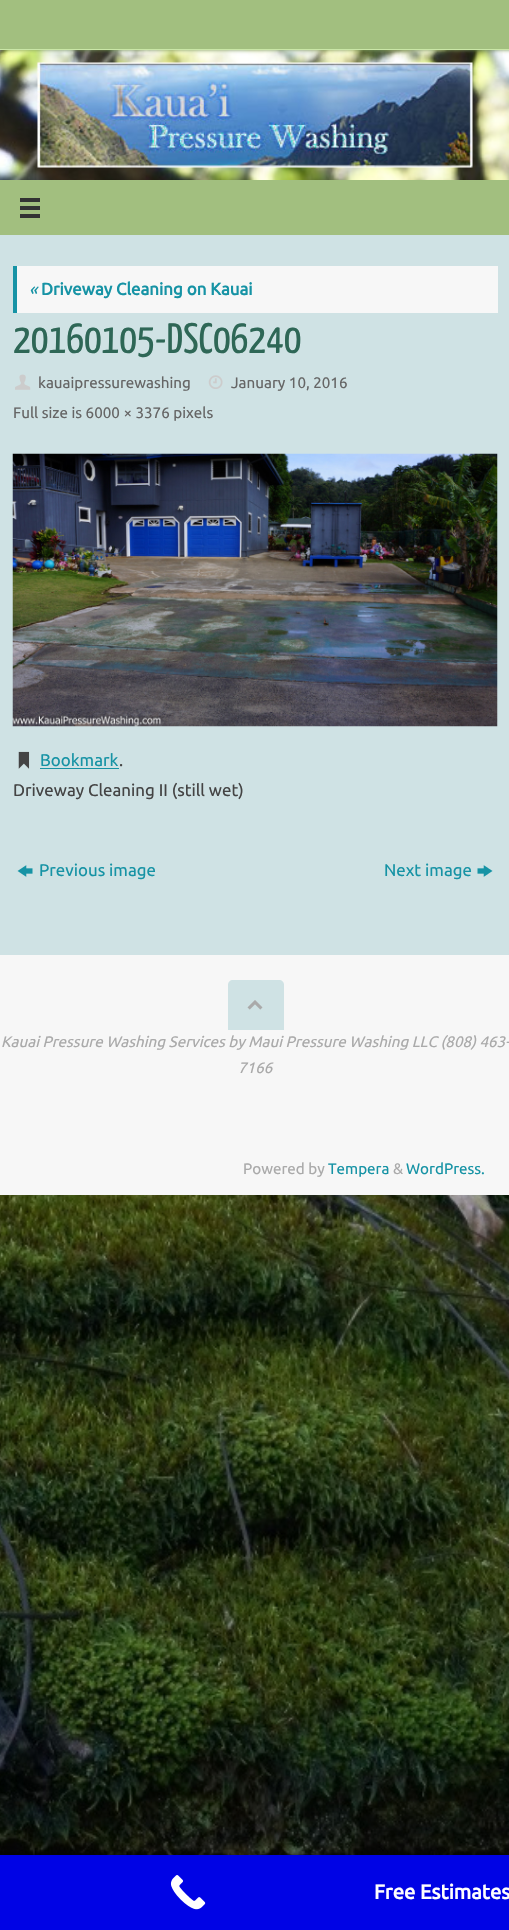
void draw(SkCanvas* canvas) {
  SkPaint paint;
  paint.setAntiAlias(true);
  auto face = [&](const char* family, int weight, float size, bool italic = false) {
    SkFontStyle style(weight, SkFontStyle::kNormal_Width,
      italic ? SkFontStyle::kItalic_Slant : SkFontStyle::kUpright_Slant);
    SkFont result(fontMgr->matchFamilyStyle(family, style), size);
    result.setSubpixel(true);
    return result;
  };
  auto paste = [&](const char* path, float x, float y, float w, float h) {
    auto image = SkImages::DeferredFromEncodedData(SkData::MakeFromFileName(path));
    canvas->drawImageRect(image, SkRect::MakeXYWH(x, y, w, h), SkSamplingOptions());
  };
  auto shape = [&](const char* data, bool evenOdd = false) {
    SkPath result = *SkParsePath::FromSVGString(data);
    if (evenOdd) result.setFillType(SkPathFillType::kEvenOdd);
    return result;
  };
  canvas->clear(0xffffffff);
  paste("img/1.png", 0, 50, 509, 1805);
  paint.setColor(0xff7a9757);
  paint.setMaskFilter(SkMaskFilter::MakeBlur(kNormal_SkBlurStyle, 2));
  canvas->drawRect(SkRect::MakeXYWH(4, 0, 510, 50), paint);
  paint.setMaskFilter(nullptr);
  paint.setColor(0xffa2bf7f);
  canvas->drawRect(SkRect::MakeXYWH(0, 0, 509, 49), paint);
  paint.setColor(0xffcae7a7);
  canvas->drawRect(SkRect::MakeXYWH(0, 49, 509, 1), paint);
  paste("img/2.png", 37, 62, 436, 106);
  paint.setColor(0xffa2bf7f);
  canvas->drawRect(SkRect::MakeXYWH(0, 180, 509, 55), paint);
  paste("img/3.png", 20, 198, 20, 20);
  {
    const struct { float x, y, w, h; SkColor color; } items[] = {
      {0, 235, 509, 720, 0xffcfe2e4},
      {17, 266, 481, 47, 0xfff7f7f7},
      {13, 266, 4, 47, 0xff1693a5},
    };
    for (auto [x, y, w, h, color] : items) {
      paint.setColor(color);
      canvas->drawRect(SkRect::MakeXYWH(x, y, w, h), paint);
    }
  }
  paste("img/4.png", 15, 374, 16, 16);
  paste("img/5.png", 208, 375, 15, 14);
  paste("img/6.png", 12, 453, 486, 274);
  paste("img/7.png", 18, 751, 12, 18);
  canvas->drawRect(SkRect::MakeXYWH(40, 768, 79, 1), paint);
  paste("img/8.png", 17, 865, 16, 12);
  paste("img/9.png", 477, 865, 16, 12);
  paint.setColor(0xfff7f7f7);
  canvas->drawRect(SkRect::MakeXYWH(0, 955, 509, 240), paint);
  paint.setColor(0xffcfe2e4);
  canvas->drawPath(shape("M233 980H279C282 980 284 982 284 985V1030H228V985C228 982 230 980 233 980Z"), paint);
  paste("img/10.png", 247, 1000, 16, 10);
  paint.setColor(0xff0003e5);
  canvas->drawRect(SkRect::MakeXYWH(0, 1855, 509, 75), paint);
  paste("img/11.png", 170, 1875, 36, 35);
  auto f0 = face("Ubuntu", 400, 16.9f, true);
  paint.setColor(0xff1693a5);
  canvas->drawString("«", 29, 295, f0, paint);
  auto f1 = face("Ubuntu", 700, 16.9f);
  canvas->drawString("Driveway Cleaning on Kauai", 41, 295, f1, paint);
  auto f2 = face("Yanone Kaffeesatz", 400, 42.5f);
  paint.setColor(0xff2e6756);
  canvas->drawString("20160105-DSC06240", 13, 353, f2, paint);
  auto f3 = face("Ubuntu", 400, 15.2f);
  paint.setColor(0xff666666);
  {
    const struct { const char* s; float x, y; } items[] = {
      {"kauaipressurewashing", 38, 388},
      {"January 10, 2016", 231, 388},
      {"Full size is 6000 × 3376 pixels", 13, 418},
    };
    for (auto [s, x, y] : items) {
      canvas->drawString(s, x, y, f3, paint);
    }
  }
  auto f4 = face("Ubuntu", 400, 16.9f);
  paint.setColor(0xff1693a5);
  canvas->drawString("Bookmark", 40, 766, f4, paint);
  paint.setColor(0xff444444);
  canvas->drawString(".", 119, 766, f4, paint);
  canvas->drawString("Driveway Cleaning II (still wet)", 13, 796, f4, paint);
  paint.setColor(0xff1693a5);
  canvas->drawString("Previous image", 39, 876, f4, paint);
  canvas->drawString("Next image", 384, 876, f4, paint);
  auto f5 = face("Ubuntu", 400, 15.2f, true);
  paint.setColor(0xffaaaaaa);
  canvas->drawString("Kauai Pressure Washing Services by Maui Pressure Washing LLC (808) 463-", 1, 1047, f5, paint);
  canvas->drawString("7166", 238, 1073, f5, paint);
  canvas->drawString("Powered by", 243, 1174, f3, paint);
  paint.setColor(0xff1693a5);
  canvas->drawString("Tempera", 328, 1174, f3, paint);
  paint.setColor(0xffaaaaaa);
  canvas->drawString("&", 393, 1174, f3, paint);
  paint.setColor(0xff1693a5);
  canvas->drawString("WordPress.", 406, 1174, f3, paint);
  auto f6 = face("Ubuntu", 700, 20.25f);
  paint.setColor(0xffffffff);
  canvas->drawString("Free Estimates", 374, 1899, f6, paint);
}
